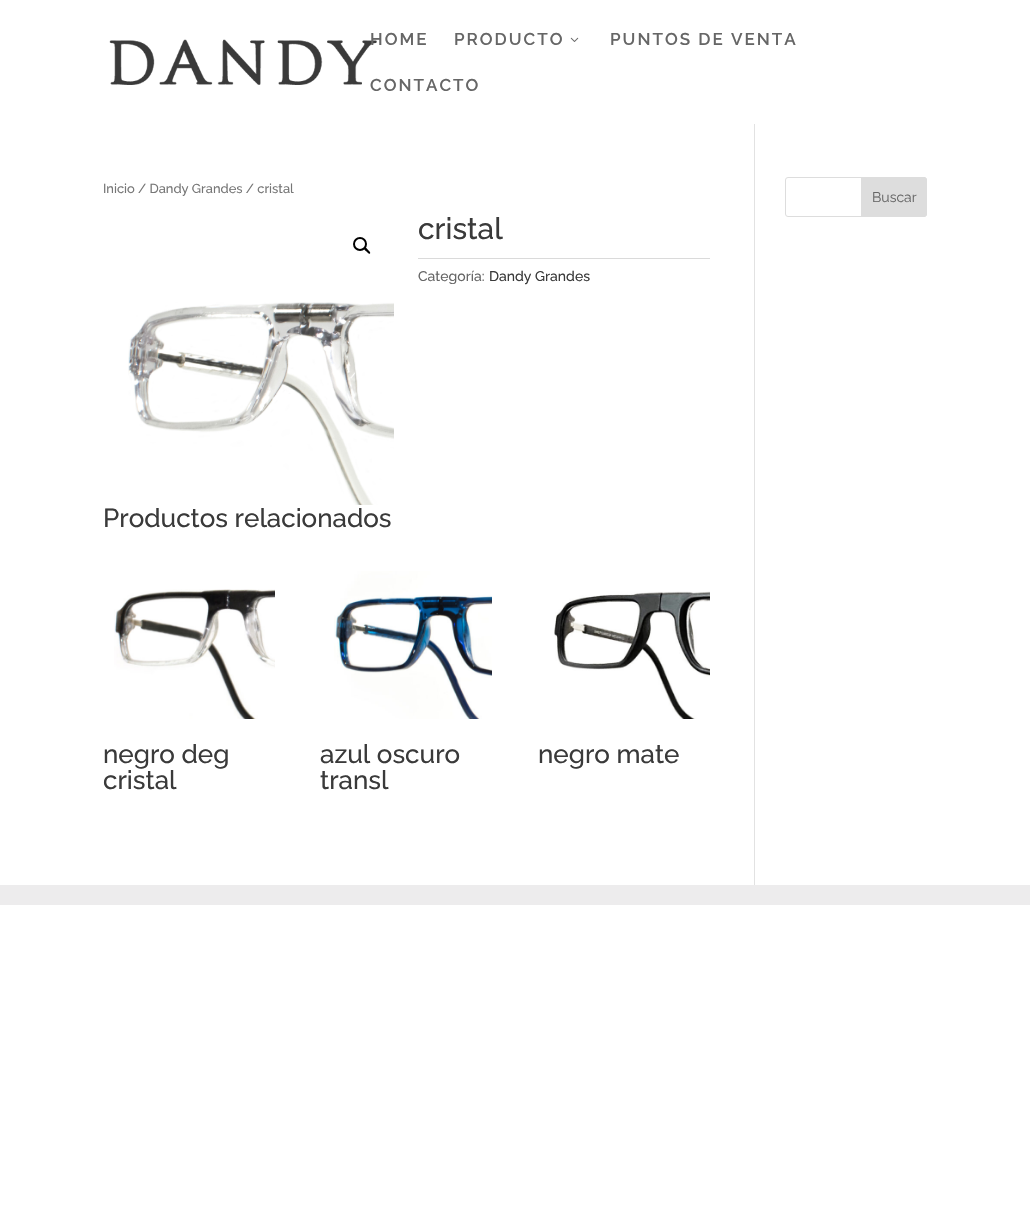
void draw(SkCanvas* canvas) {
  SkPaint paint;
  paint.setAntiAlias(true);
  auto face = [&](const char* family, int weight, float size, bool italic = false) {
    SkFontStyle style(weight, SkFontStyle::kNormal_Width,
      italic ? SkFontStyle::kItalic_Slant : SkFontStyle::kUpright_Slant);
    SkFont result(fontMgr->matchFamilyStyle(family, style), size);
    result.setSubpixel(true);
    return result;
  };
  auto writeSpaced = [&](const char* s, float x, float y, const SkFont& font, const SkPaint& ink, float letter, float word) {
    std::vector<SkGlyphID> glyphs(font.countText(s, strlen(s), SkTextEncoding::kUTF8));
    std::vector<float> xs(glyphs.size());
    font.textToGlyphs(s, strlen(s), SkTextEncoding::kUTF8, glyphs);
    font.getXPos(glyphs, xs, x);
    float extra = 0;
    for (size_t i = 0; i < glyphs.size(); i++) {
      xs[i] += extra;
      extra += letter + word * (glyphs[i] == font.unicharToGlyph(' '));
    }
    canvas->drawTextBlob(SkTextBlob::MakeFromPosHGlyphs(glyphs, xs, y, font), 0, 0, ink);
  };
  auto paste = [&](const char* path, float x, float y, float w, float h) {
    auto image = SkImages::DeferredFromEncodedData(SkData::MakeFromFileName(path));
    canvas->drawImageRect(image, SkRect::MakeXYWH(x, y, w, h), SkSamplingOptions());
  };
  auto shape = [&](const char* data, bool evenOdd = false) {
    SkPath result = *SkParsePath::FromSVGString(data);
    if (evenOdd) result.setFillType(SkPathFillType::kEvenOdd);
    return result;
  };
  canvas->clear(0xffffffff);
  paint.setColor(0xffe2e2e2);
  canvas->drawRect(SkRect::MakeXYWH(754, 119, 1, 766), paint);
  paint.setColor(0xffffffff);
  canvas->drawRect(SkRect::MakeXYWH(754, 119, 1, 5), paint);
  paste("img/1.png", 109, 39, 268, 46);
  paste("img/2.png", 570, 37, 9, 5);
  paint.setStroke(true);
  paint.setStrokeWidth(2);
  paint.setColor(0xff000000);
  canvas->drawCircle(360, 244, 6, paint);
  paint.setStroke(false);
  canvas->drawPath(shape("M364.5 248C365.5 246.5 367.5 249.5 368 250C368.5 250.5 371 252.5 370 253.5C369 254.5 367 252 366.5 251.5C366 251 363 249 364.5 248Z"), paint);
  paste("img/3.png", 128, 302, 266, 203);
  paint.setColor(0xffdadada);
  canvas->drawRect(SkRect::MakeXYWH(418, 258, 292, 1), paint);
  paste("img/4.png", 114, 589, 161, 130);
  paste("img/5.png", 334, 571, 158, 148);
  paste("img/6.png", 554, 591, 156, 128);
  paint.setStroke(true);
  paint.setStrokeWidth(1);
  paint.setColor(0xffdddddd);
  canvas->drawRoundRect(SkRect::MakeXYWH(785.5f, 177.5f, 141, 39), 2.5f, 2.5f, paint);
  paint.setStroke(false);
  canvas->drawPath(shape("M861.5 177.5H924C925.5 177.5 926.5 178.5 926.5 180V214C926.5 215.5 925.5 216.5 924 216.5H861.5Z"), paint);
  paint.setStroke(true);
  canvas->drawPath(shape("M861.5 177.5H924C925.5 177.5 926.5 178.5 926.5 180V214C926.5 215.5 925.5 216.5 924 216.5H861.5Z"), paint);
  paint.setStroke(false);
  paint.setColor(0xffedeced);
  canvas->drawRect(SkRect::MakeXYWH(0, 885, 1030, 20), paint);
  auto f0 = face("Raleway", 600, 17);
  paint.setColor(0xff666666);
  {
    const struct { const char* s; float x, y; } items[] = {
      {"HOME", 370, 45},
      {"PRODUCTO", 454, 45},
      {"PUNTOS DE VENTA", 610, 45},
      {"CONTACTO", 370, 91},
    };
    for (auto [s, x, y] : items) {
      writeSpaced(s, x, y, f0, paint, 2, 0);
    }
  }
  auto f1 = face("Raleway", 500, 12.9f);
  paint.setColor(0xff767676);
  canvas->drawString("Inicio / Dandy Grandes / cristal", 103, 193, f1, paint);
  auto f2 = face("Raleway", 500, 30);
  paint.setColor(0xff3a3a3a);
  canvas->drawString("cristal", 418, 239, f2, paint);
  auto f3 = face("Raleway", 500, 14);
  paint.setColor(0xff666666);
  canvas->drawString("Categoría:", 418, 281, f3, paint);
  paint.setColor(0xff3a3a3a);
  canvas->drawString("Dandy Grandes", 489, 281, f3, paint);
  auto f4 = face("Raleway", 500, 26);
  {
    const struct { const char* s; float x, y; } items[] = {
      {"Productos relacionados", 103, 527},
      {"negro deg", 103, 763},
      {"cristal", 103, 789},
      {"azul oscuro", 320, 763},
      {"transl", 320, 789},
      {"negro mate", 538, 763},
    };
    for (auto [s, x, y] : items) {
      canvas->drawString(s, x, y, f4, paint);
    }
  }
  auto f5 = face("Raleway", 400, 14);
  paint.setColor(0xff666666);
  canvas->drawString("Buscar", 872, 202, f5, paint);
}
